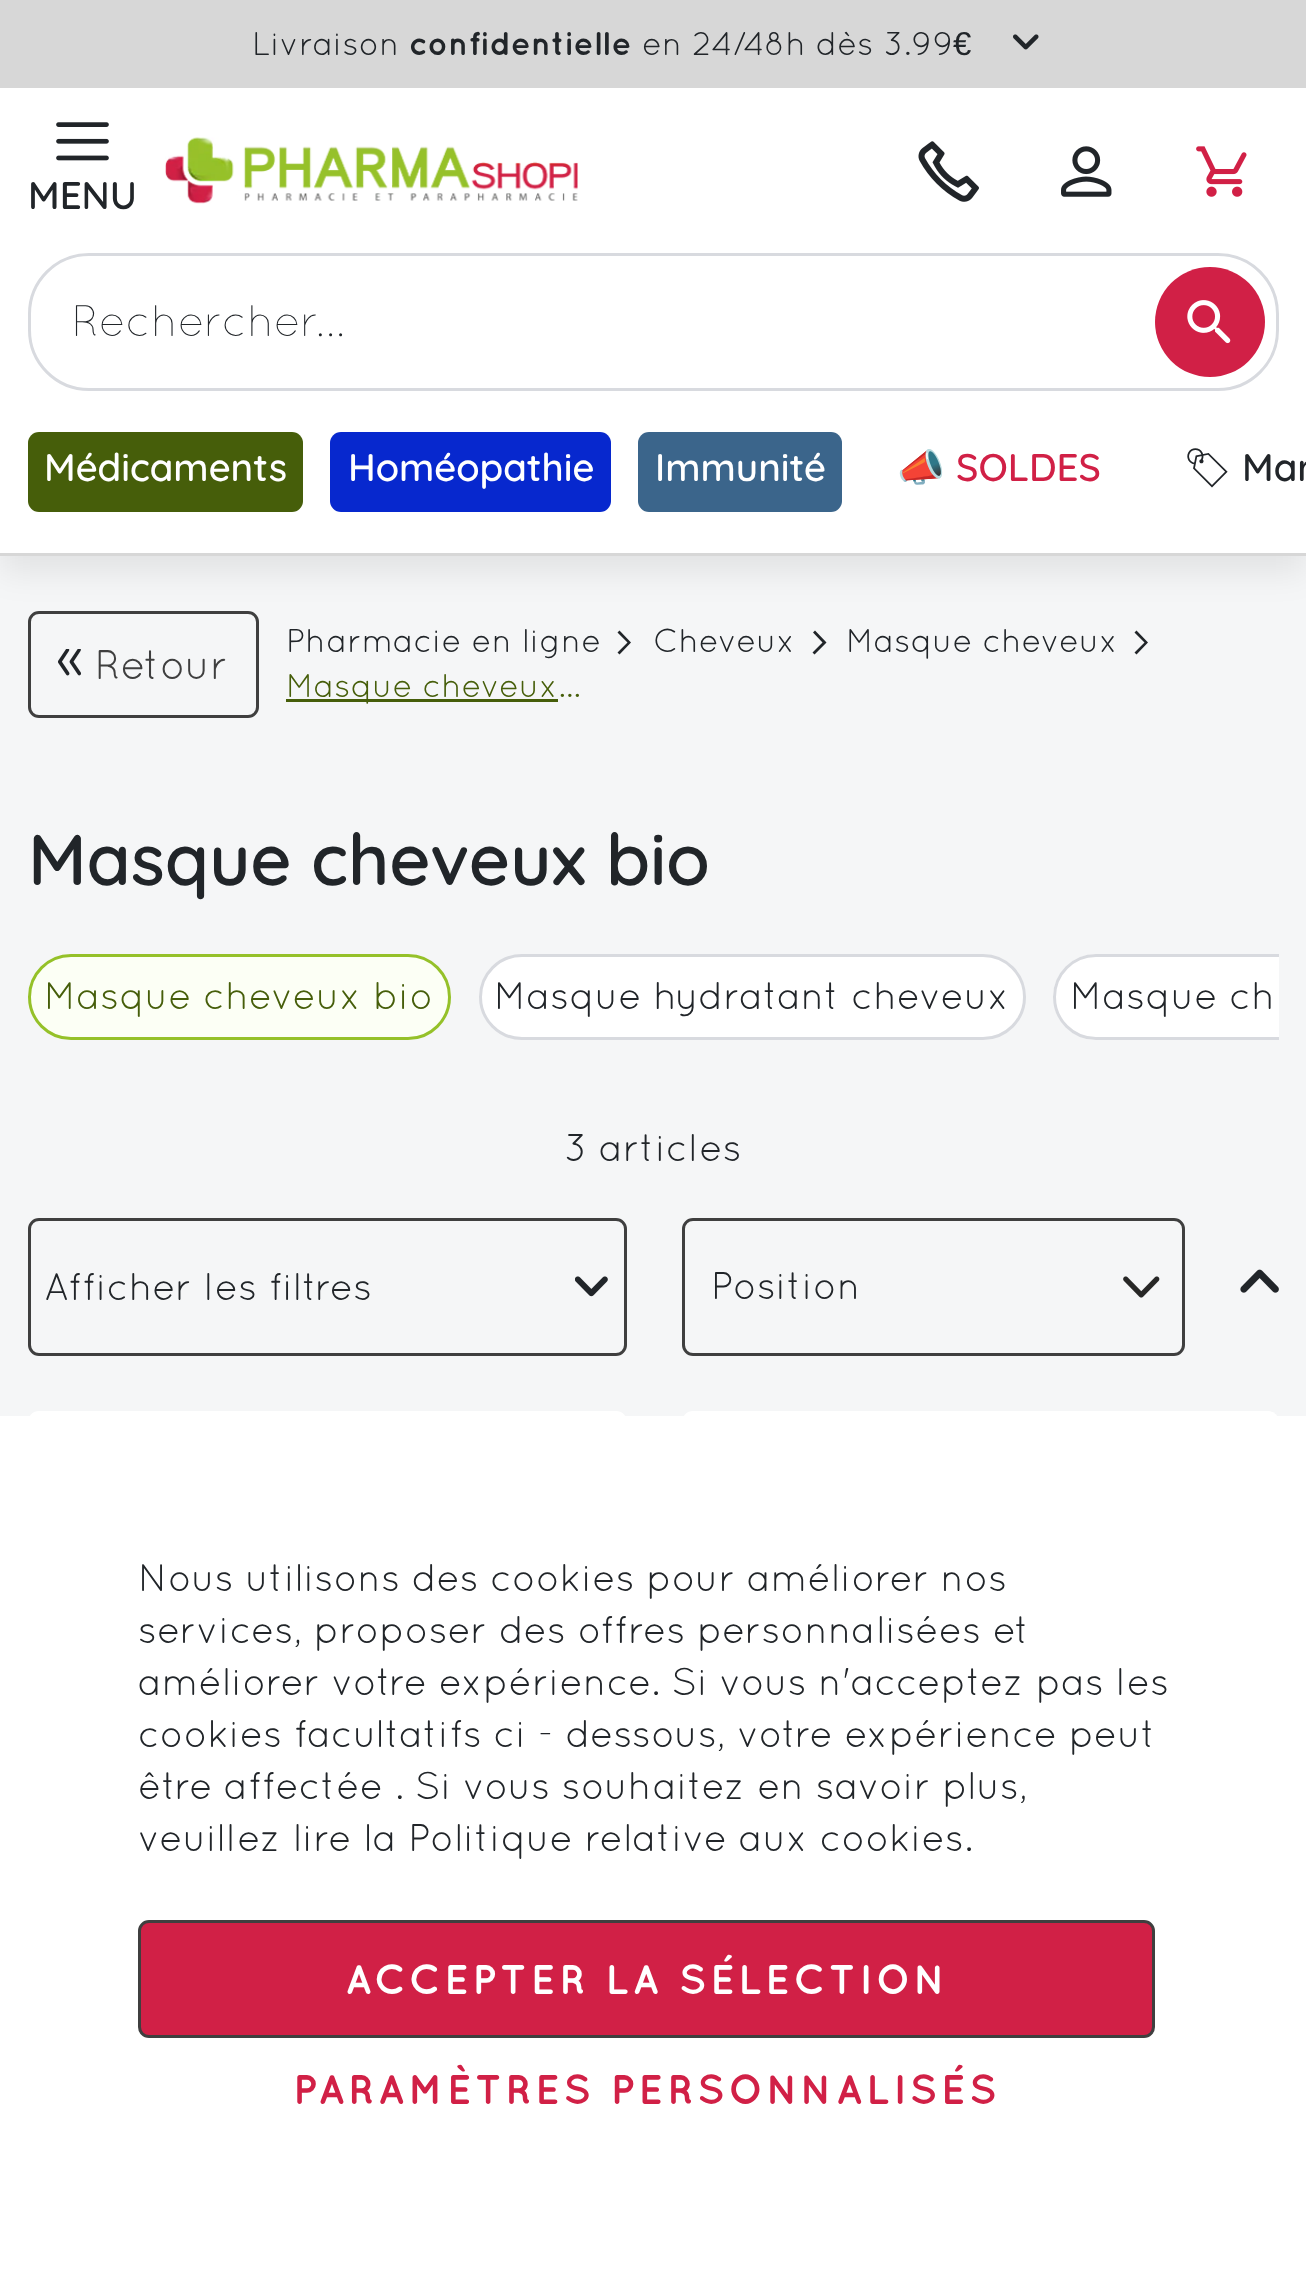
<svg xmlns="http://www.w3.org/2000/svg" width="1306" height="2277">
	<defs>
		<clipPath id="clip1"><rect x="28" y="954" width="1251" height="88" /></clipPath>
	</defs>
	<rect width="100%" height="100%" fill="#F5F6F7" />
	<rect x="29.5" y="612.5" width="228" height="104" rx="9.5" fill="none" stroke="#3F3F3F" stroke-width="3" />
	<rect x="0" y="17" width="1306" height="555" fill="#000000" fill-opacity="0.08" filter="blur(16.5px)" />
	<rect x="0" y="88" width="1306" height="465" fill="#FFFFFF" />
	<rect x="0" y="553" width="1306" height="3" fill="#D7D7D7" />
	<rect x="0" y="0" width="1306" height="88" fill="#D7D7D7" />
	<text x="252" y="55" font-family="Quicksand" font-size="33" fill="#212529">Livraison</text>
	<text x="409" y="55" font-family="Quicksand" font-size="33" font-weight="700" fill="#212529">confidentielle</text>
	<text x="642" y="55" font-family="Quicksand" font-size="33" fill="#212529">en 24/48h dès 3.99</text>
	<text x="953" y="55" font-family="Liberation Sans" font-size="33" fill="#212529">€</text>
	<image x="1013" y="34" width="26" height="16" href="assets/img1.png" />
	<image x="56" y="122" width="53" height="39" href="assets/img2.png" />
	<text x="28" y="209" font-family="Quicksand" font-size="38.5" font-weight="600" fill="#212529">MENU</text>
	<image x="165" y="137" width="413" height="67" href="assets/img3.png" />
	<image x="918" y="141" width="61" height="61" href="assets/img4.png" />
	<image x="1061" y="146" width="51" height="51" href="assets/img5.png" />
	<image x="1196" y="146" width="51" height="51" href="assets/img6.png" />
	<circle cx="1210" cy="322" r="55" fill="#D12046" />
	<image x="1187" y="300" width="44" height="44" href="assets/img7.png" />
	<rect x="29.5" y="254.5" width="1248" height="135" rx="59.5" fill="none" stroke="#D8DADF" stroke-width="3" />
	<text x="72" y="336" font-family="Quicksand" font-size="44" font-weight="300" fill="#212529">Rechercher...</text>
	<rect x="28" y="432" width="275" height="80" rx="11" fill="#465E0A" />
	<text x="44" y="481" font-family="Quicksand" font-size="38.5" font-weight="500" fill="#FFFFFF">Médicaments</text>
	<rect x="330" y="432" width="281" height="80" rx="11" fill="#0728CE" />
	<text x="348" y="481" font-family="Quicksand" font-size="38.5" font-weight="500" fill="#FFFFFF">Homéopathie</text>
	<rect x="638" y="432" width="204" height="80" rx="11" fill="#3B658B" />
	<text x="655" y="481" font-family="Quicksand" font-size="38.5" font-weight="500" fill="#FFFFFF">Immunité</text>
	<text x="897" y="481" font-family="Noto Color Emoji" font-size="38.5" fill="#D12046">📣</text>
	<text x="956" y="481" font-family="Quicksand" font-size="38.5" font-weight="500" fill="#D12046">SOLDES</text>
	<text x="1183" y="481" font-family="Noto Emoji" font-size="38.5" font-weight="500" fill="#212529">🏷</text>
	<text x="1242" y="481" font-family="Quicksand" font-size="38.5" font-weight="500" fill="#212529">Mar</text>
	<image x="58" y="649" width="23" height="27" href="assets/img8.png" />
	<text x="95" y="679" font-family="Quicksand" font-size="41.25" fill="#3F3F3F">Retour</text>
	<text x="286" y="652" font-family="Quicksand" font-size="33" fill="#212529">Pharmacie en ligne</text>
	<path d="M631 642.5L619.5 630.5L617.5 632.5L627.5 642.5L617.5 652.5L619.5 654.5Z" fill="#212529" />
	<text x="653" y="652" font-family="Quicksand" font-size="33" fill="#212529">Cheveux</text>
	<path d="M826.5 642.5L815 630.5L813 632.5L822.5 642.5L812.5 652.5L814.5 654.5Z" fill="#212529" />
	<text x="846" y="652" font-family="Quicksand" font-size="33" fill="#212529">Masque cheveux</text>
	<path d="M1148 642.5L1136.5 630.5L1134.5 632.5L1144.5 642.5L1134.5 652.5L1136.5 654.5Z" fill="#212529" />
	<rect x="286" y="699" width="272" height="3" fill="#465E0A" />
	<text x="286" y="697" font-family="Quicksand" font-size="33" fill="#465E0A">Masque cheveux…</text>
	<text x="28" y="885" font-family="Quicksand" font-size="71.5" font-weight="600" fill="#212529">Masque cheveux bio</text>
	<rect x="29.5" y="955.5" width="420" height="83" rx="41.5" fill="#FCFFF5" stroke="#95C129" stroke-width="3" />
	<text x="44" y="1009" font-family="Quicksand" font-size="38.5" fill="#465E0A">Masque cheveux bio</text>
	<rect x="480.5" y="955.5" width="544" height="83" rx="41.5" fill="#FFFFFF" stroke="#D8DADF" stroke-width="3" />
	<text x="494" y="1009" font-family="Quicksand" font-size="38.5" fill="#212529">Masque hydratant cheveux</text>
	<path d="M1096 954H1279V1040H1096C1072.5 1040 1053 1020.5 1053 997C1053 973.5 1072.5 954 1096 954Z" fill="#FFFFFF" />
	<g clip-path="url(#clip1)">
		<rect x="1054.5" y="955.5" width="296" height="83" rx="41.5" fill="none" stroke="#D8DADF" stroke-width="3" />
	</g>
	<g font-family="Quicksand" font-size="38.5" fill="#212529">
		<text x="1070" y="1009">Masque ch</text>
		<text x="564" y="1161">3 articles</text>
	</g>
	<image x="1123" y="1276" width="37" height="22" href="assets/img9.png" />
	<rect x="683.5" y="1219.5" width="500" height="135" rx="9.5" fill="none" stroke="#3F3F3F" stroke-width="3" />
	<text x="711" y="1299" font-family="Quicksand" font-size="38.5" fill="#212529">Position</text>
	<image x="1240" y="1269" width="39" height="24" href="assets/img10.png" />
	<rect x="28" y="1411" width="599" height="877" rx="11" fill="#FFFFFF" />
	<rect x="682" y="1411" width="597" height="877" rx="11" fill="#FFFFFF" />
	<rect x="29.5" y="1219.5" width="596" height="135" rx="9.5" fill="none" stroke="#3F3F3F" stroke-width="3" />
	<text x="44" y="1300" font-family="Quicksand" font-size="38.5" fill="#212529">Afficher les filtres</text>
	<image x="575" y="1276" width="33" height="21" href="assets/img11.png" />
	<rect x="0" y="1416" width="1306" height="861" fill="#FFFFFF" />
	<g font-family="Quicksand" font-size="38.5" fill="#212529">
		<text x="138" y="1591">Nous utilisons des cookies pour améliorer nos</text>
		<text x="138" y="1643">services, proposer des offres personnalisées et</text>
		<text x="138" y="1695">améliorer votre expérience. Si vous n'acceptez pas les</text>
		<text x="138" y="1747">cookies facultatifs ci - dessous, votre expérience peut</text>
		<text x="138" y="1799">être affectée . Si vous souhaitez en savoir plus,</text>
		<text x="138" y="1851">veuillez lire la Politique relative aux cookies.</text>
	</g>
	<rect x="139.5" y="1921.5" width="1014" height="115" rx="9.5" fill="#D12046" stroke="#3F3F3F" stroke-width="3" />
	<text x="345" y="1994" font-family="Quicksand" font-size="41.25" font-weight="700" letter-spacing="3.75" fill="#FFFFFF">ACCEPTER LA SÉLECTION</text>
	<text x="293" y="2104" font-family="Quicksand" font-size="41.25" font-weight="700" letter-spacing="3.75" fill="#D12046">PARAMÈTRES PERSONNALISÉS</text>
</svg>
